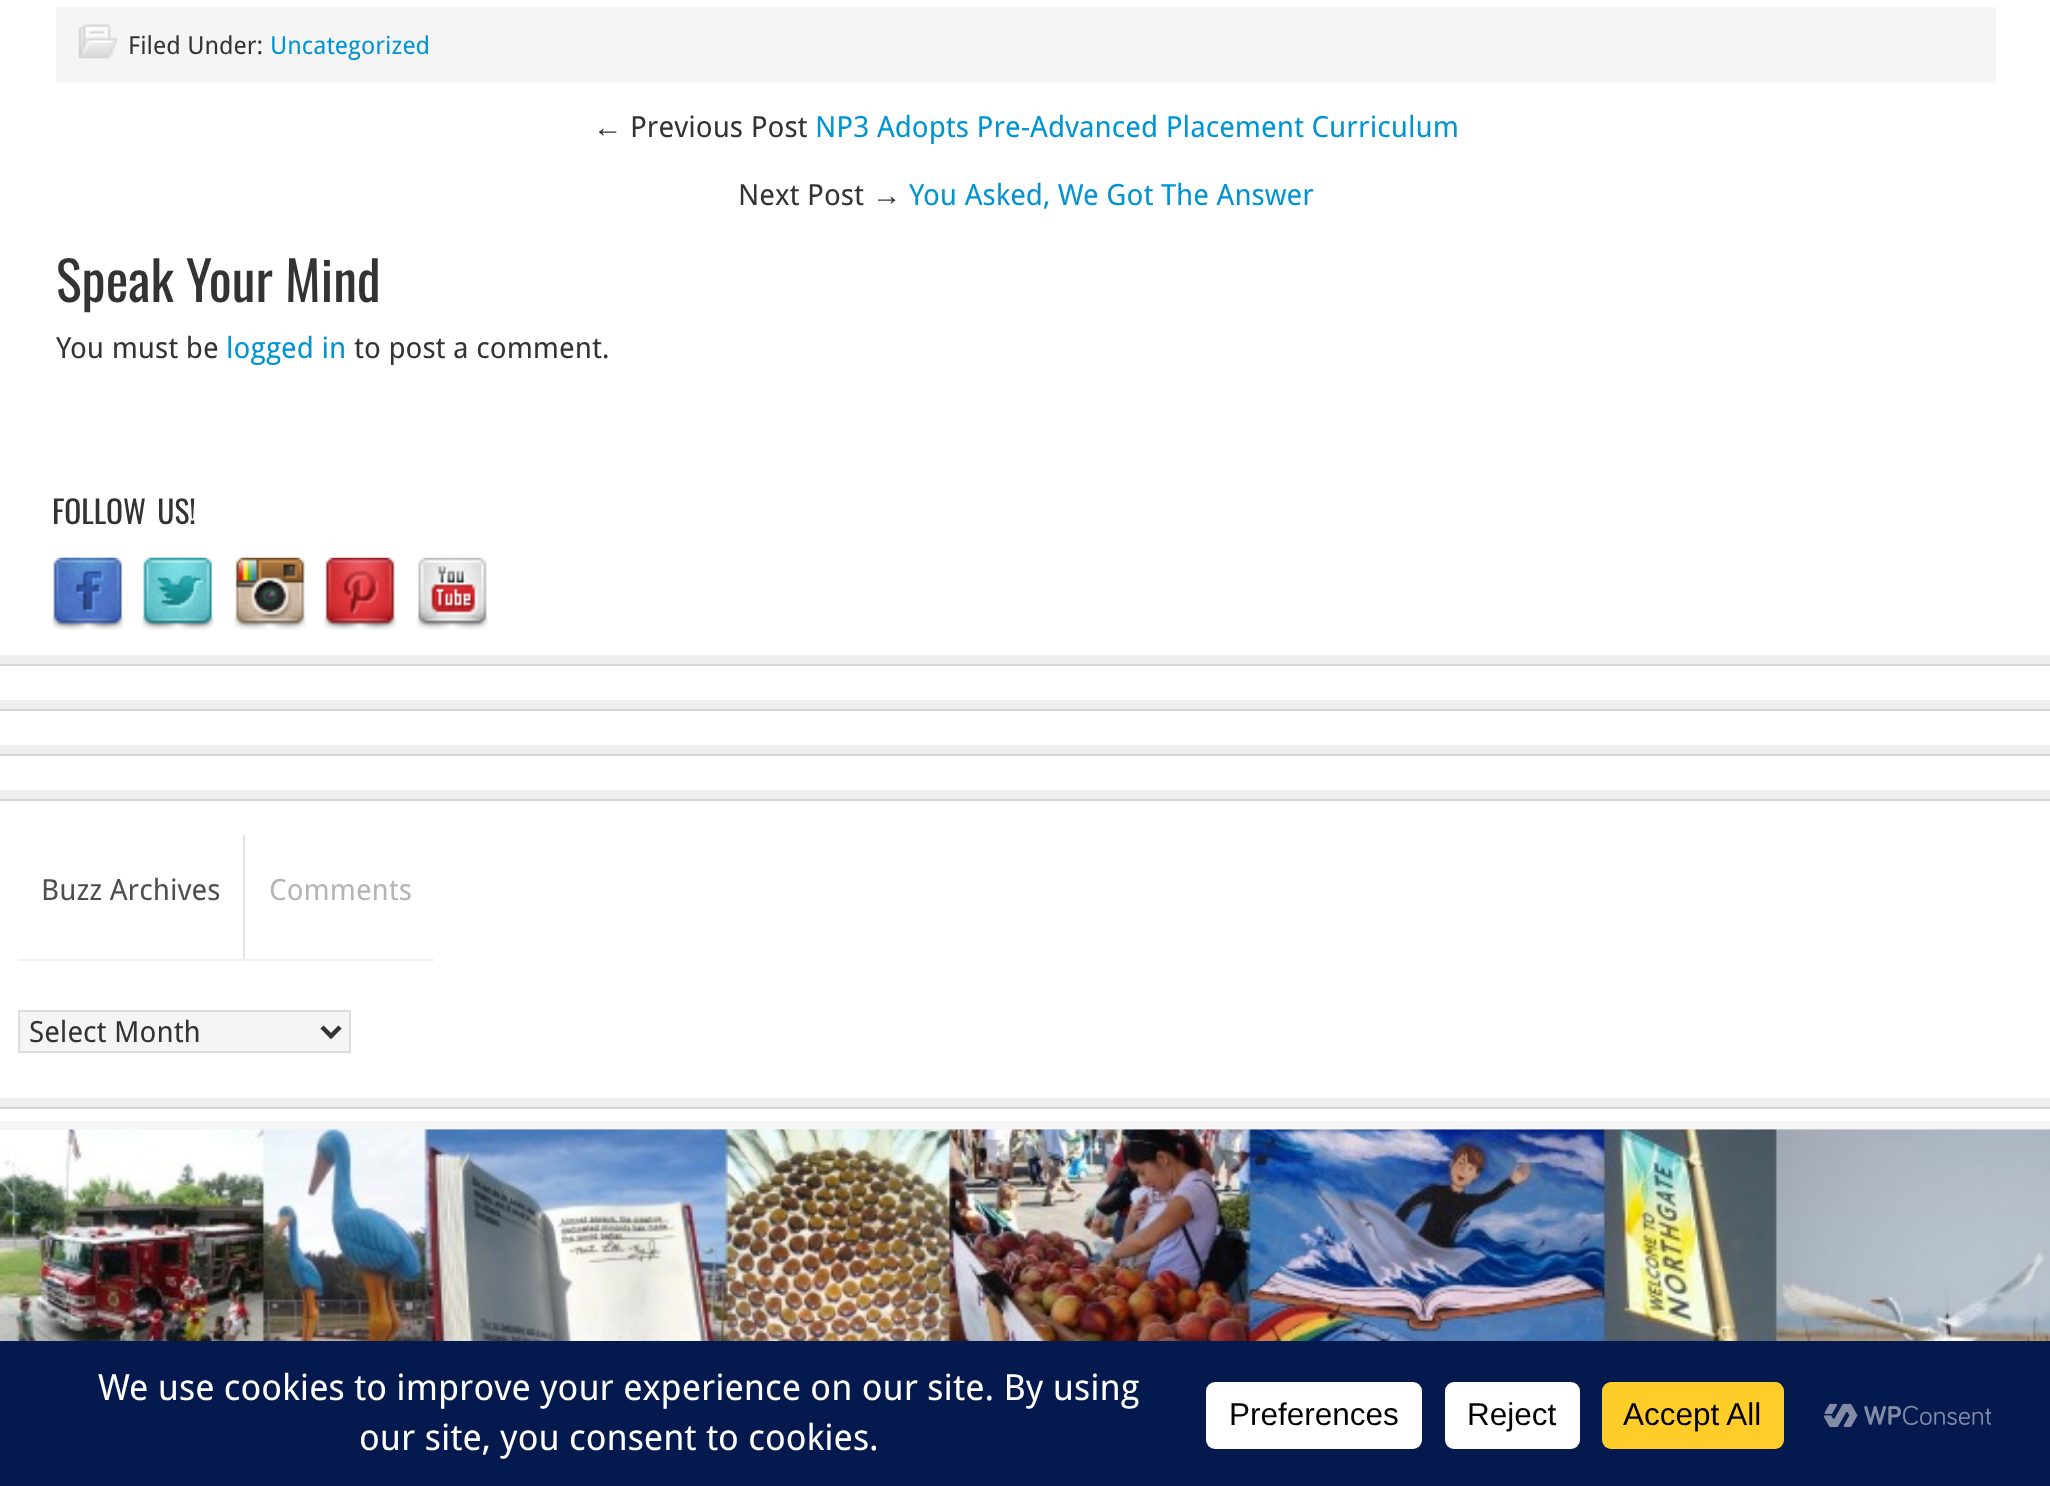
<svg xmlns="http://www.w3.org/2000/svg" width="2050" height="1486">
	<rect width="100%" height="100%" fill="#FFFFFF" />
	<rect x="56" y="7" width="1940" height="76" fill="#F5F5F5" />
	<image x="78" y="24" width="39" height="35" href="assets/img1.png" />
	<text x="128" y="54" font-family="Droid Sans" font-size="24.75" fill="#333333">Filed Under:</text>
	<text x="270" y="54" font-family="Droid Sans" font-size="24.75" fill="#0094D2">Uncategorized</text>
	<text x="593" y="137" font-family="Liberation Sans" font-size="29.25" fill="#333333">←</text>
	<text x="630" y="137" font-family="Droid Sans" font-size="29.25" fill="#333333">Previous Post</text>
	<text x="815" y="137" font-family="Droid Sans" font-size="29.25" fill="#0094D2">NP3 Adopts Pre-Advanced Placement Curriculum</text>
	<text x="738" y="205" font-family="Droid Sans" font-size="29.25" fill="#333333">Next Post</text>
	<text x="872" y="205" font-family="Liberation Sans" font-size="29.25" fill="#333333">→</text>
	<text x="909" y="205" font-family="Droid Sans" font-size="29.25" fill="#0094D2">You Asked, We Got The Answer</text>
	<text x="56" y="302" font-family="Oswald" font-size="54" fill="#333333">Speak Your Mind</text>
	<text x="56" y="358" font-family="Droid Sans" font-size="29.25" fill="#333333">You must be</text>
	<text x="226" y="358" font-family="Droid Sans" font-size="29.25" fill="#0094D2">logged in</text>
	<text x="354" y="358" font-family="Droid Sans" font-size="29.25" fill="#333333">to post a comment.</text>
	<rect x="0" y="664" width="2050" height="2" fill="#D5D5D5" />
	<rect x="0" y="655" width="2050" height="9" fill="#EEEEEE" />
	<text x="52" y="524" word-spacing="4" font-family="Oswald" font-size="31.5" fill="#333333">FOLLOW US!</text>
	<image x="52" y="557" width="72" height="73" href="assets/img2.png" />
	<image x="142" y="557" width="72" height="73" href="assets/img3.png" />
	<image x="234" y="557" width="72" height="73" href="assets/img4.png" />
	<image x="324" y="557" width="72" height="73" href="assets/img5.png" />
	<image x="416" y="557" width="72" height="73" href="assets/img6.png" />
	<rect x="0" y="709" width="2050" height="2" fill="#D5D5D5" />
	<rect x="0" y="700" width="2050" height="9" fill="#EEEEEE" />
	<rect x="0" y="754" width="2050" height="2" fill="#D5D5D5" />
	<rect x="0" y="745" width="2050" height="9" fill="#EEEEEE" />
	<rect x="0" y="799" width="2050" height="2" fill="#D5D5D5" />
	<rect x="0" y="790" width="2050" height="9" fill="#EEEEEE" />
	<rect x="0" y="1107" width="2050" height="2" fill="#D5D5D5" />
	<rect x="0" y="1098" width="2050" height="9" fill="#EEEEEE" />
	<rect x="243" y="835" width="2" height="126" fill="#E6E6E6" />
	<rect x="18" y="959" width="416" height="2" fill="#EEEEEE" />
	<text x="41" y="900" font-family="Droid Sans" font-size="29.25" fill="#4F4F4F">Buzz Archives</text>
	<rect x="245" y="959" width="2" height="2" fill="#FFFFFF" />
	<text x="269" y="900" font-family="Droid Sans" font-size="29.25" fill="#B5B5B5">Comments</text>
	<rect x="19" y="1011" width="331" height="41" fill="#F5F5F5" stroke="#DDDDDD" stroke-width="2" />
	<path d="M322 1027L331 1036L340 1027" fill="none" stroke="#333333" stroke-width="4.5" />
	<text x="29" y="1042" font-family="Droid Sans" font-size="29.25" fill="#333333">Select Month</text>
	<rect x="0" y="1121" width="2050" height="9" fill="#F5F5F5" />
	<image x="0" y="1129" width="2050" height="212" href="assets/img7.png" />
	<rect x="0" y="1341" width="2050" height="145" fill="#04194E" />
	<g font-family="Droid Sans" font-size="36" fill="#FFFFFF">
		<text x="98" y="1400">We use cookies to improve your experience on our site. By using</text>
		<text x="359" y="1450">our site, you consent to cookies.</text>
	</g>
	<rect x="1206" y="1382" width="216" height="67" rx="9" fill="#FFFFFF" />
	<text x="1229" y="1425" font-family="Liberation Sans" font-size="31.5" fill="#000000">Preferences</text>
	<rect x="1445" y="1382" width="135" height="67" rx="9" fill="#FFFFFF" />
	<text x="1467" y="1425" font-family="Liberation Sans" font-size="31.5" fill="#000000">Reject</text>
	<rect x="1602" y="1382" width="182" height="67" rx="9" fill="#FFCD2A" />
	<text x="1623" y="1425" font-family="Liberation Sans" font-size="31.5" fill="#000000">Accept All</text>
	<image x="1824" y="1403" width="168" height="24" href="assets/img8.png" />
</svg>
